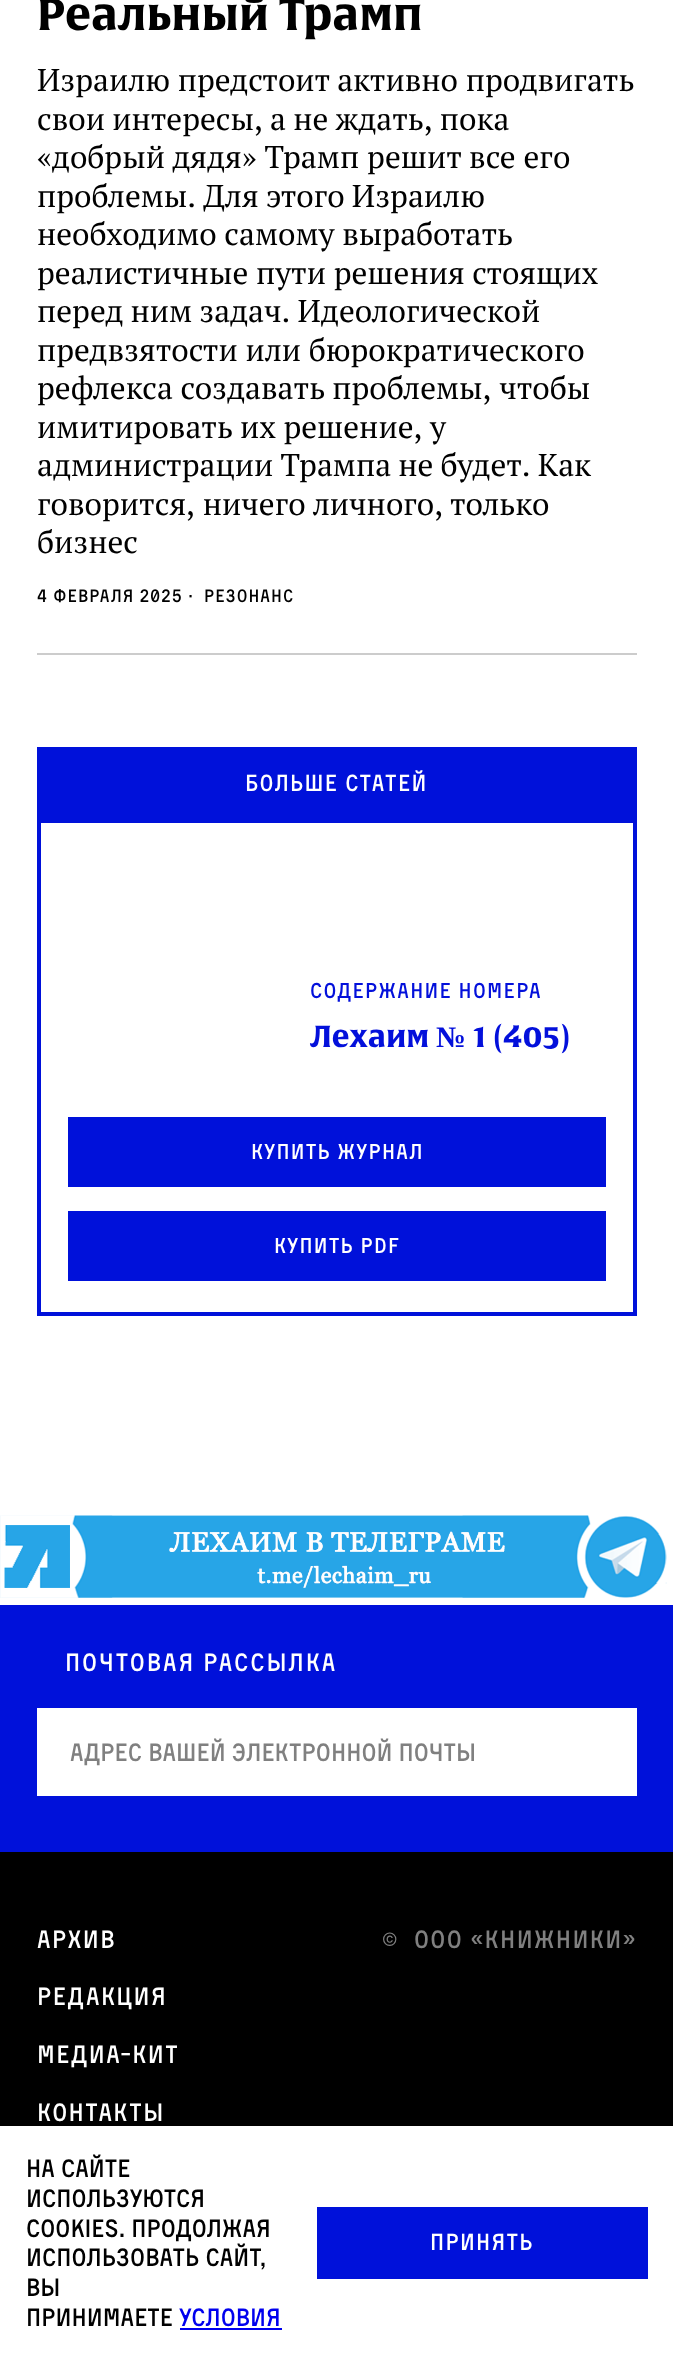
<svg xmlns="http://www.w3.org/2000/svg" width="673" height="2356">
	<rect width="100%" height="100%" fill="#FFFFFF" />
	<rect x="37" y="653" width="600" height="2" fill="#CCCCCC" />
	<text x="37" y="30" font-family="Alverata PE" font-size="43.75" font-weight="700" fill="#000000">Реальный Трамп</text>
	<g font-family="PT Serif" font-size="31.5" fill="#000000">
		<text x="37" y="91">Израилю предстоит активно продвигать</text>
		<text x="37" y="130" word-spacing="-0.5">свои интересы, а не ждать, пока</text>
		<text x="37" y="168" word-spacing="0.25">«добрый дядя» Трамп решит все его</text>
		<text x="37" y="207" word-spacing="-0.5">проблемы. Для этого Израилю</text>
		<text x="37" y="245">необходимо самому выработать</text>
		<text x="37" y="284">реалистичные пути решения стоящих</text>
		<text x="37" y="322" word-spacing="-0.5">перед ним задач. Идеологической</text>
		<text x="37" y="361">предвзятости или бюрократического</text>
		<text x="37" y="399">рефлекса создавать проблемы, чтобы</text>
		<text x="37" y="438">имитировать их решение, у</text>
		<text x="37" y="476" word-spacing="-0.5">администрации Трампа не будет. Как</text>
		<text x="37" y="515">говорится, ничего личного, только</text>
		<text x="37" y="553">бизнес</text>
	</g>
	<g font-family="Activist" font-size="17.5" letter-spacing="1" fill="#000000">
		<text x="37" y="602">4 февраля 2025 ·</text>
		<text x="204" y="602">Резонанс</text>
	</g>
	<rect x="37" y="747" width="600" height="72" fill="#0011DA" />
	<text x="245" y="791" font-family="Activist" font-size="22.75" letter-spacing="1.25" fill="#FFFFFF">Больше статей</text>
	<rect x="39" y="821" width="596" height="493" fill="none" stroke="#0011DA" stroke-width="4" />
	<text x="310" y="998" font-family="Activist" font-size="21" letter-spacing="1.25" fill="#0310DB">Содержание номера</text>
	<text x="310" y="1047" font-family="Alverata PE" font-size="29.75" font-weight="700" fill="#0310DB">Лехаим</text>
	<text x="436" y="1047" font-family="Liberation Serif" font-size="29.75" font-weight="700" fill="#0310DB">№</text>
	<text x="473" y="1047" font-family="Alverata PE" font-size="29.75" font-weight="700" fill="#0310DB">1 (405)</text>
	<rect x="68" y="1117" width="538" height="70" fill="#0011DA" />
	<text x="251" y="1159" font-family="Activist" font-size="21" letter-spacing="1.25" fill="#FFFFFF">Купить журнал</text>
	<rect x="68" y="1211" width="538" height="70" fill="#0011DA" />
	<text x="274" y="1253" font-family="Activist" font-size="21" letter-spacing="1.25" fill="#FFFFFF">Купить PDF</text>
	<image x="0" y="1515" width="667" height="83" href="assets/img1.png" />
	<rect x="0" y="1605" width="673" height="247" fill="#0011DA" />
	<text x="65" y="1671" font-family="Activist" font-size="24.5" letter-spacing="1.9" fill="#FFFFFF">Почтовая рассылка</text>
	<rect x="37" y="1708" width="600" height="88" fill="#FFFFFF" />
	<text x="70" y="1761" font-family="Activist" font-size="24.5" fill="#808080">Адрес вашей электронной почты</text>
	<rect x="0" y="1852" width="673" height="274" fill="#000000" />
	<g font-family="Activist" font-size="24.5" letter-spacing="1.4" fill="#FFFFFF">
		<text x="37" y="1948">Архив</text>
		<text x="37" y="2005">Редакция</text>
		<text x="37" y="2063">Медиа-кит</text>
		<text x="37" y="2121">Контакты</text>
	</g>
	<text x="382" y="1948" font-family="Activist" font-size="24.5" letter-spacing="1.4" fill="#808080" xml:space="preserve">©  OOO «КНИЖНИКИ»</text>
	<g font-family="Activist" font-size="24.5" fill="#000000">
		<text x="26" y="2177">На сайте</text>
		<text x="26" y="2207">используются</text>
		<text x="26" y="2237">cookies. Продолжая</text>
		<text x="26" y="2266">использовать сайт,</text>
		<text x="26" y="2296">вы</text>
		<text x="26" y="2326">принимаете</text>
	</g>
	<text x="179" y="2326" font-family="Activist" font-size="24.5" fill="#0000EE">условия</text>
	<rect x="180" y="2328" width="102" height="2" fill="#0000EE" />
	<rect x="317" y="2207" width="331" height="72" fill="#0011DA" />
	<text x="430" y="2250" font-family="Activist" font-size="22.75" letter-spacing="1.25" fill="#FFFFFF">Принять</text>
</svg>
